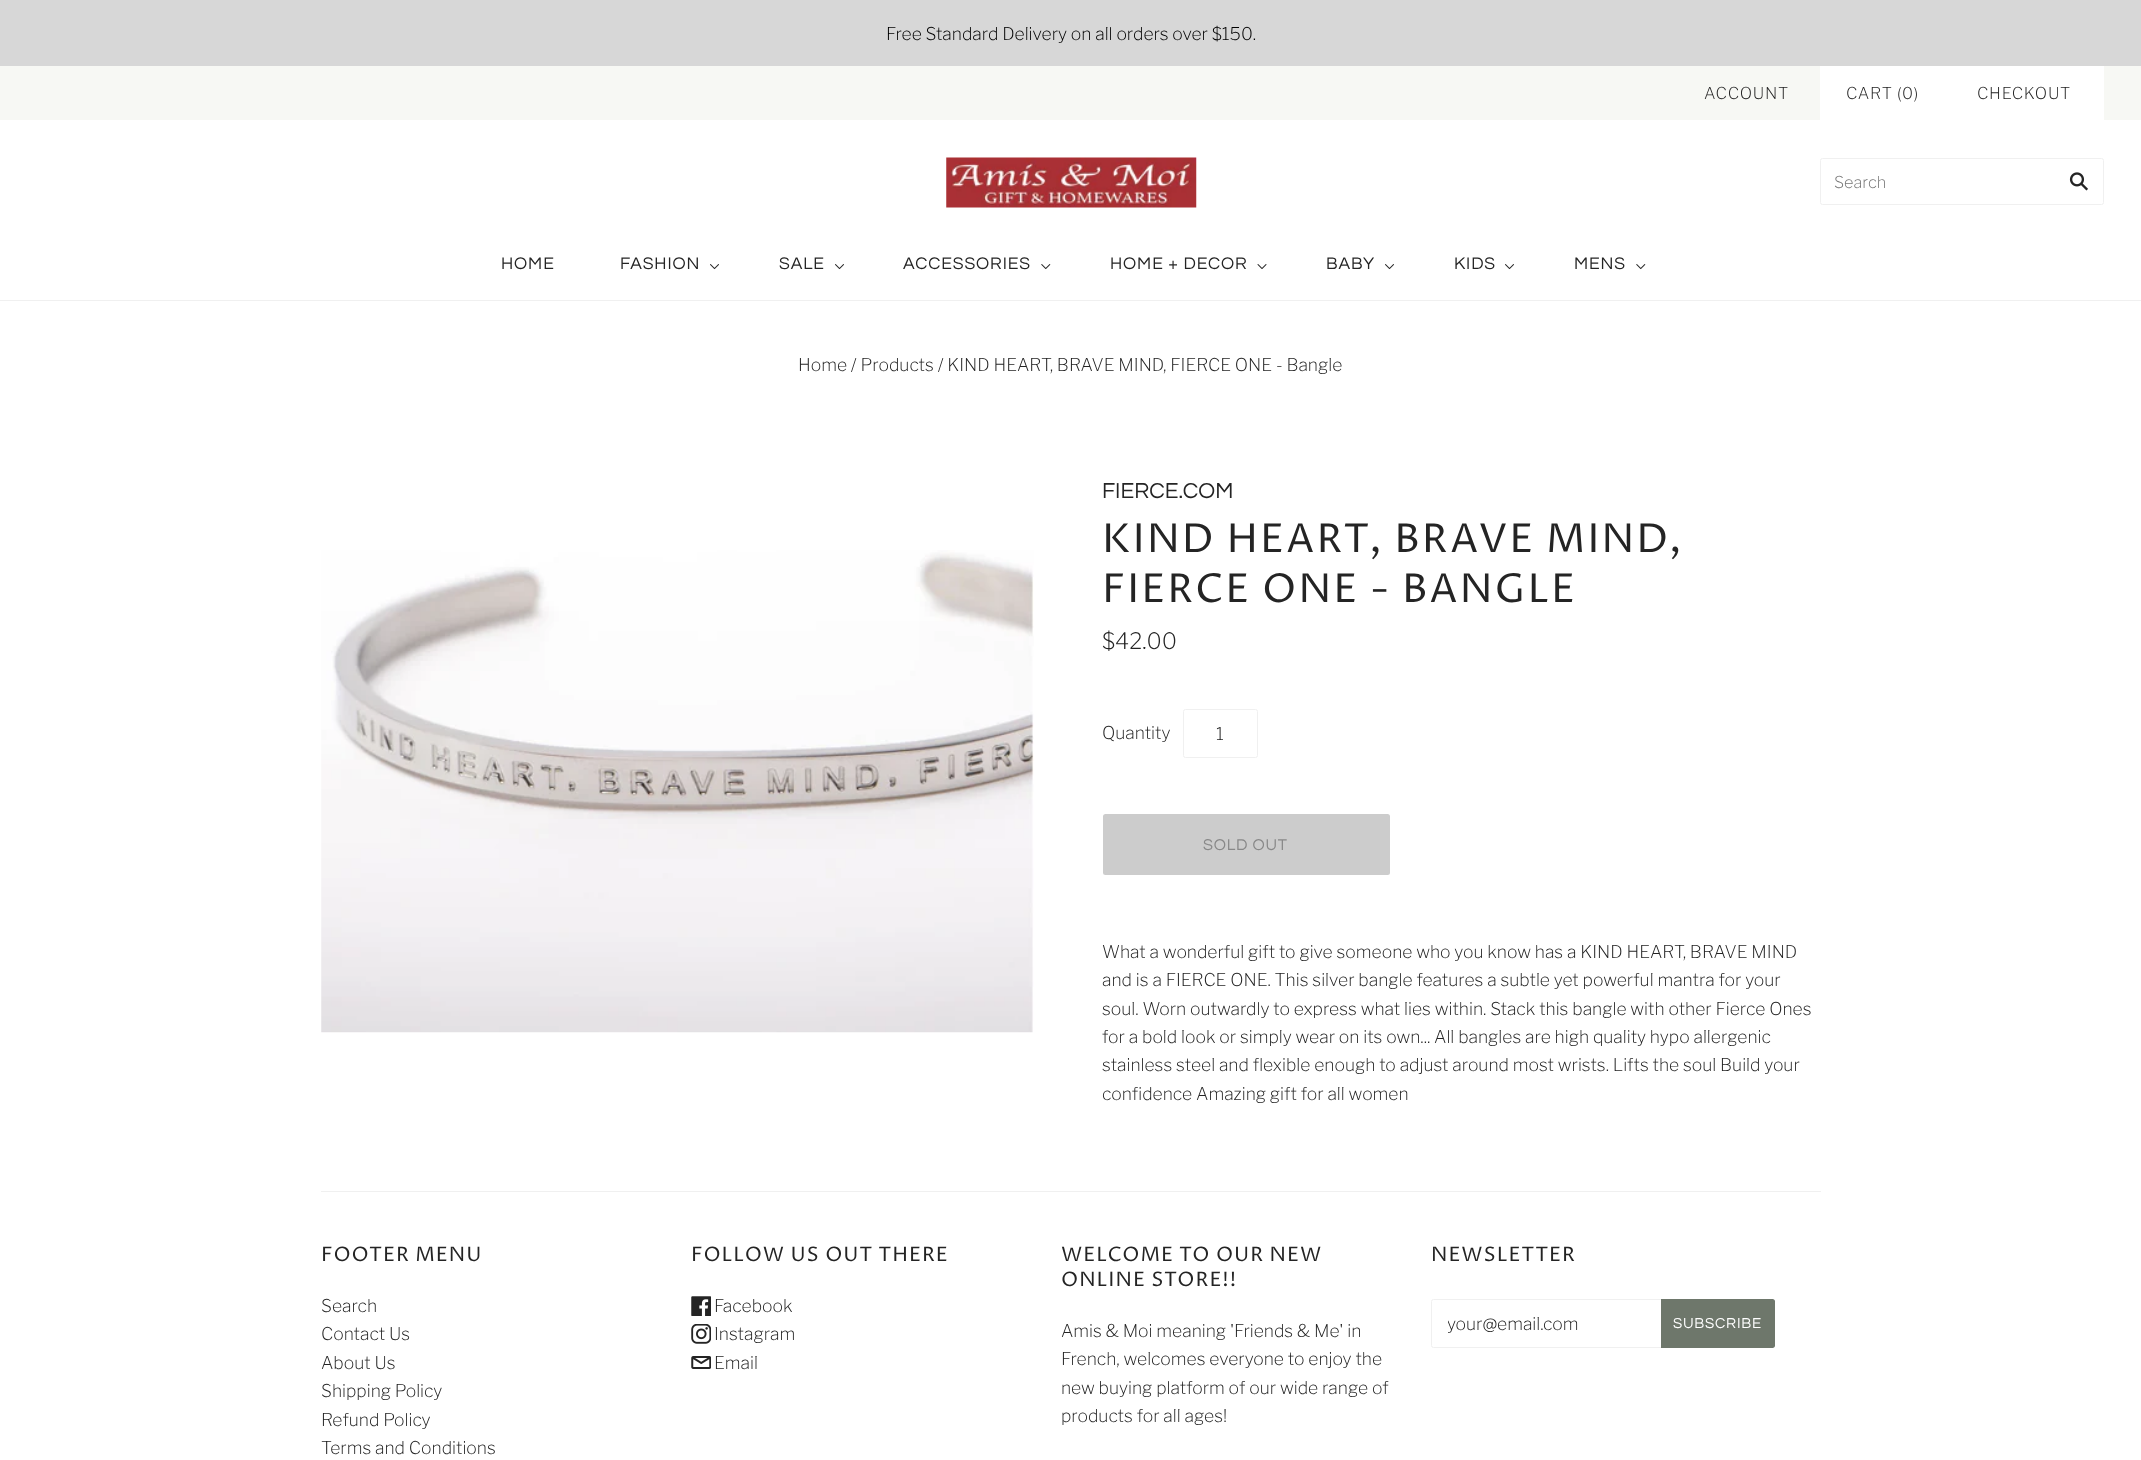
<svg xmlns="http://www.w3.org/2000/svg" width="2141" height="1460">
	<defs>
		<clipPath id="clip1"><rect x="1448" y="1313" width="200" height="21" /></clipPath>
	</defs>
	<rect width="100%" height="100%" fill="#FFFFFF" />
	<rect x="0" y="0" width="2141" height="66" fill="#D7D7D7" />
	<text x="886" y="40" font-family="Libre Franklin" font-size="17.5" font-weight="200" fill="#000000">Free Standard Delivery on all orders over $150.</text>
	<rect x="0" y="300" width="2141" height="1" fill="#F0F0F0" />
	<rect x="0" y="66" width="2141" height="54" fill="#F7F8F4" />
	<text x="1704" y="99" font-family="Libre Franklin" font-size="16.25" font-weight="200" letter-spacing="0.75" fill="#242424">ACCOUNT</text>
	<rect x="1820" y="66" width="284" height="54" fill="#FFFFFF" />
	<g font-family="Libre Franklin" font-size="16.25" font-weight="200" letter-spacing="0.75" fill="#242424">
		<text x="1846" y="99">CART (0)</text>
		<text x="1977" y="99">CHECKOUT</text>
	</g>
	<image x="946" y="157" width="251" height="51" href="assets/img1.png" />
	<rect x="1820.5" y="158.5" width="283" height="46" rx="2" fill="none" stroke="#F0F0F0" />
	<text x="1834" y="188" font-family="Libre Franklin" font-size="16.25" font-weight="200" fill="#757575">Search</text>
	<image x="2069" y="172" width="19" height="19" href="assets/img2.png" />
	<g font-family="Questrial" font-size="17.5" letter-spacing="0.9" fill="#242424">
		<text x="501" y="269">HOME</text>
		<text x="620" y="269">FASHION</text>
	</g>
	<image x="710" y="264" width="9" height="6" href="assets/img3.png" />
	<text x="779" y="269" font-family="Questrial" font-size="17.5" letter-spacing="0.9" fill="#242424">SALE</text>
	<image x="835" y="264" width="9" height="6" href="assets/img3.png" />
	<text x="903" y="269" font-family="Questrial" font-size="17.5" letter-spacing="0.9" fill="#242424">ACCESSORIES</text>
	<image x="1041" y="264" width="10" height="6" href="assets/img4.png" />
	<text x="1110" y="269" font-family="Questrial" font-size="17.5" letter-spacing="0.9" fill="#242424">HOME + DECOR</text>
	<image x="1257" y="264" width="10" height="5" href="assets/img5.png" />
	<text x="1326" y="269" font-family="Questrial" font-size="17.5" letter-spacing="0.9" fill="#242424">BABY</text>
	<image x="1385" y="264" width="9" height="6" href="assets/img3.png" />
	<text x="1454" y="269" font-family="Questrial" font-size="17.5" letter-spacing="0.9" fill="#242424">KIDS</text>
	<image x="1505" y="264" width="9" height="6" href="assets/img3.png" />
	<text x="1574" y="269" font-family="Questrial" font-size="17.5" letter-spacing="0.9" fill="#242424">MENS</text>
	<image x="1636" y="264" width="10" height="6" href="assets/img4.png" />
	<text x="798" y="371" font-family="Libre Franklin" font-size="17.5" font-weight="200" fill="#242424">Home / Products / KIND HEART, BRAVE MIND, FIERCE ONE - Bangle</text>
	<image x="321" y="550" width="713" height="483" href="assets/img6.png" />
	<text x="1102" y="498" font-family="Questrial" font-size="22.5" fill="#242424">FIERCE.COM</text>
	<g font-family="Proza Libre" font-size="40" letter-spacing="2" fill="#242424">
		<text x="1102" y="552">KIND HEART, BRAVE MIND,</text>
		<text x="1102" y="602">FIERCE ONE - BANGLE</text>
	</g>
	<text x="1102" y="649" font-family="Libre Franklin" font-size="22.5" font-weight="200" fill="#242424">$42.00</text>
	<text x="1102" y="739" font-family="Libre Franklin" font-size="17.5" font-weight="200" fill="#242424">Quantity</text>
	<rect x="1183.5" y="709.5" width="74" height="48" rx="2" fill="none" stroke="#F0F0F0" />
	<text x="1216" y="740" font-family="Libre Franklin" font-size="17.5" font-weight="200" fill="#242424">1</text>
	<rect x="1103" y="814" width="287" height="61" rx="2.5" fill="#CCCCCC" />
	<text x="1203" y="850" font-family="Questrial" font-size="16.25" letter-spacing="0.75" fill="#888888">SOLD OUT</text>
	<g font-family="Libre Franklin" font-size="17.5" font-weight="200" fill="#242424">
		<text x="1102" y="958">What a wonderful gift to give someone who you know has a KIND HEART, BRAVE MIND</text>
		<text x="1102" y="986">and is a FIERCE ONE. This silver bangle features a subtle yet powerful mantra for your</text>
		<text x="1102" y="1015">soul. Worn outwardly to express what lies within. Stack this bangle with other Fierce Ones</text>
		<text x="1102" y="1043">for a bold look or simply wear on its own... All bangles are high quality hypo allergenic</text>
		<text x="1102" y="1071">stainless steel and flexible enough to adjust around most wrists. Lifts the soul Build your</text>
		<text x="1102" y="1100">confidence Amazing gift for all women</text>
	</g>
	<rect x="321" y="1191" width="1500" height="1" fill="#F0F0F0" />
	<text x="321" y="1261" font-family="Proza Libre" font-size="20" letter-spacing="1" fill="#242424">FOOTER MENU</text>
	<g font-family="Libre Franklin" font-size="17.5" font-weight="200" fill="#242424">
		<text x="321" y="1312">Search</text>
		<text x="321" y="1340">Contact Us</text>
		<text x="321" y="1369">About Us</text>
		<text x="321" y="1397">Shipping Policy</text>
		<text x="321" y="1426">Refund Policy</text>
		<text x="321" y="1454">Terms and Conditions</text>
	</g>
	<text x="691" y="1261" font-family="Proza Libre" font-size="20" letter-spacing="1" fill="#242424">FOLLOW US OUT THERE</text>
	<image x="691" y="1296" width="20" height="20" href="assets/img7.png" />
	<text x="714" y="1312" font-family="Libre Franklin" font-size="17.5" font-weight="200" fill="#242424">Facebook</text>
	<image x="691" y="1324" width="20" height="20" href="assets/img8.png" />
	<text x="714" y="1340" font-family="Libre Franklin" font-size="17.5" font-weight="200" fill="#242424">Instagram</text>
	<image x="691" y="1356" width="20" height="13" href="assets/img9.png" />
	<text x="714" y="1369" font-family="Libre Franklin" font-size="17.5" font-weight="200" fill="#242424">Email</text>
	<g font-family="Proza Libre" font-size="20" letter-spacing="1" fill="#242424">
		<text x="1061" y="1261">WELCOME TO OUR NEW</text>
		<text x="1061" y="1286">ONLINE STORE!!</text>
	</g>
	<g font-family="Libre Franklin" font-size="17.5" font-weight="200" fill="#242424">
		<text x="1061" y="1337">Amis &amp; Moi meaning 'Friends &amp; Me' in</text>
		<text x="1061" y="1365">French, welcomes everyone to enjoy the</text>
		<text x="1061" y="1394">new buying platform of our wide range of</text>
		<text x="1061" y="1422">products for all ages!</text>
	</g>
	<text x="1431" y="1261" font-family="Proza Libre" font-size="20" letter-spacing="1" fill="#242424">NEWSLETTER</text>
	<rect x="1431.5" y="1299.5" width="343" height="48" rx="2" fill="none" stroke="#F0F0F0" />
	<g clip-path="url(#clip1)">
		<text x="1447" y="1330" font-family="Libre Franklin" font-size="17.5" font-weight="200" fill="#242424">your@email.com</text>
	</g>
	<path d="M1661 1299H1772.5C1774 1299 1775 1300 1775 1301.5V1345.5C1775 1347 1774 1348 1772.5 1348H1661Z" fill="#6E776B" />
	<text x="1673" y="1328" font-family="Questrial" font-size="15" letter-spacing="0.75" fill="#FFFFFF">SUBSCRIBE</text>
</svg>
